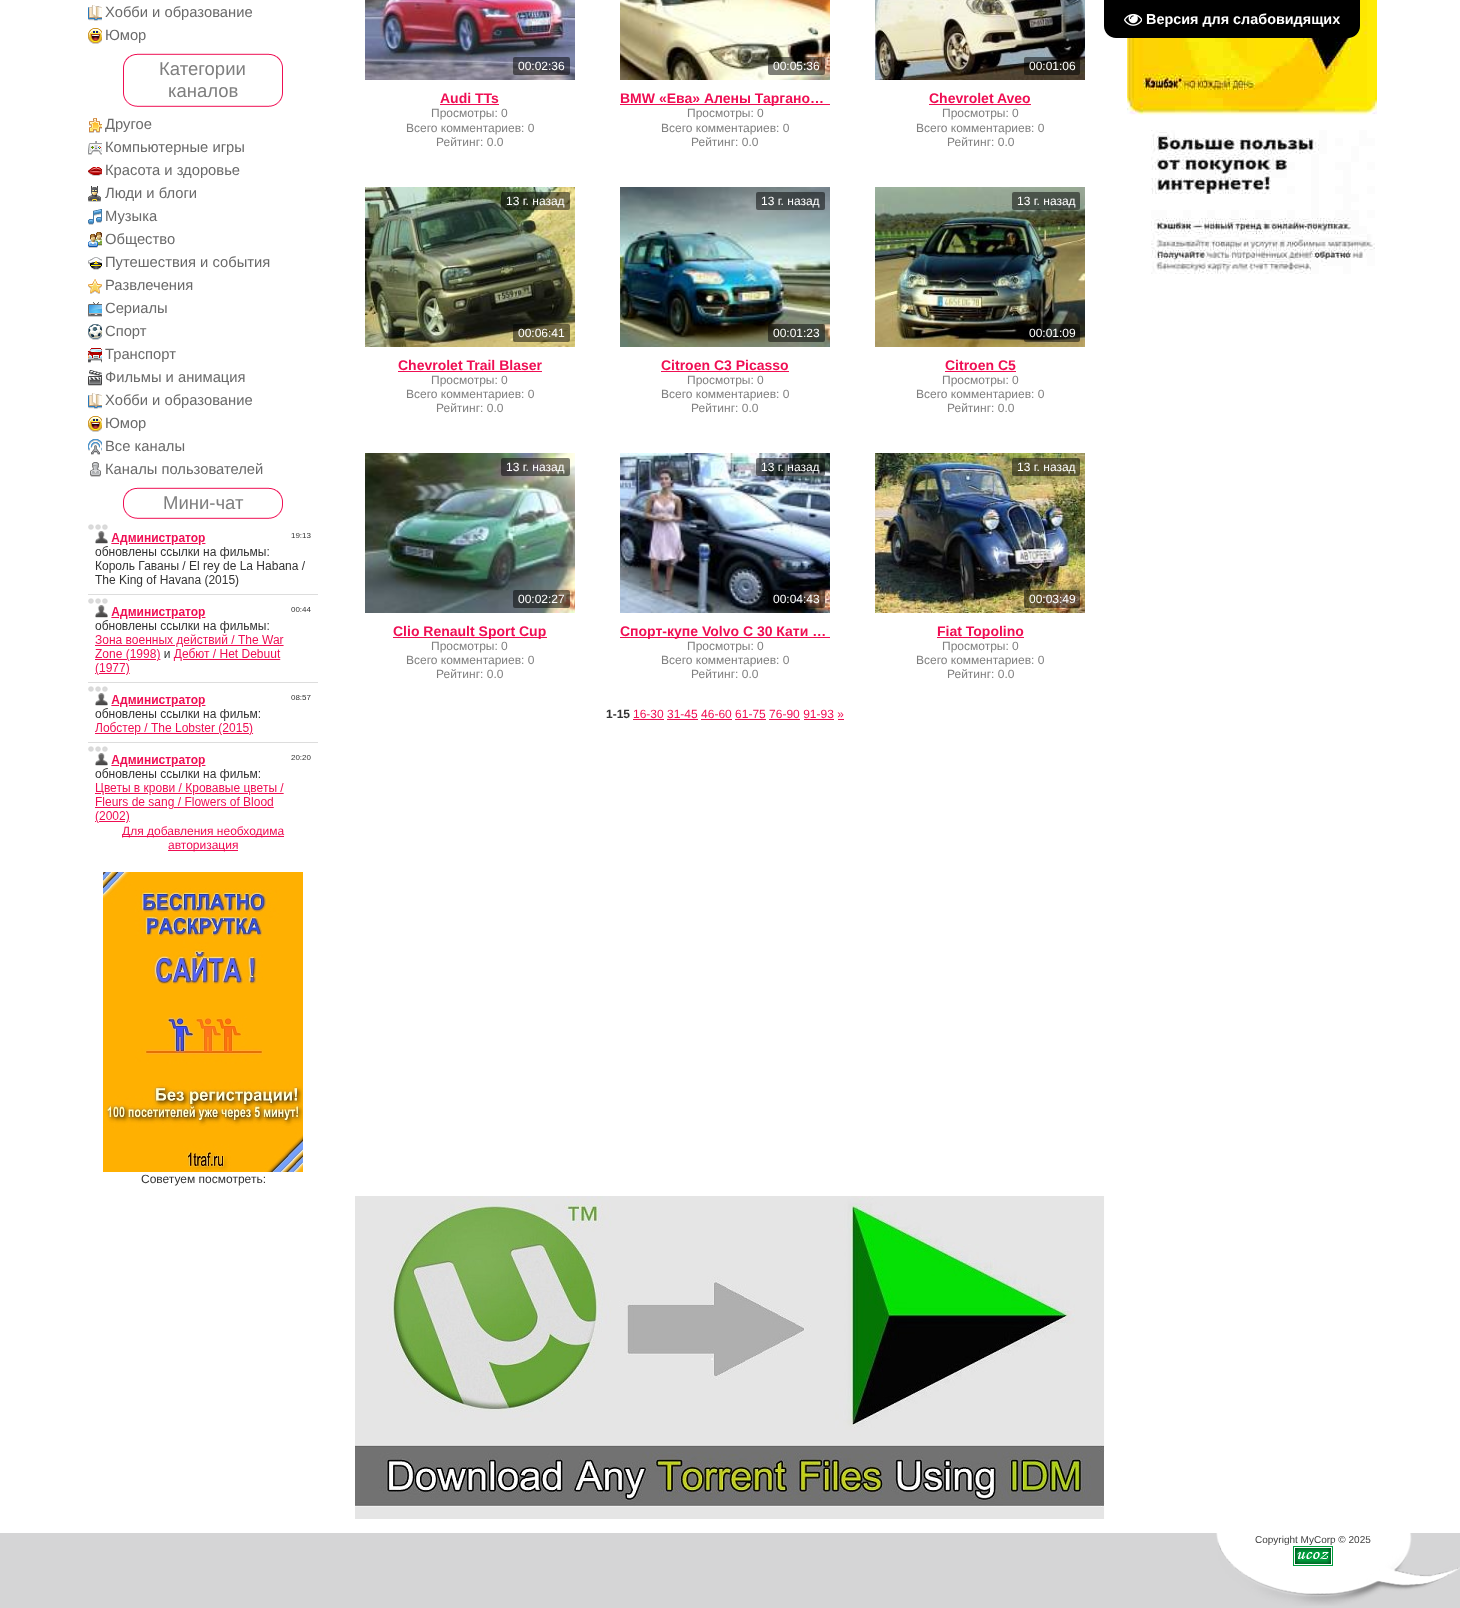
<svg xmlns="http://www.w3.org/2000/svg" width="1460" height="1608">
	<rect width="100%" height="100%" fill="#FFFFFF" />
	<image x="88" y="5" width="14" height="16" href="assets/img1.png" />
	<text x="105" y="17" font-family="Liberation Sans" font-size="14.75" fill="#6A6A6A">Хобби и образование</text>
	<image x="88" y="28" width="14" height="16" href="assets/img2.png" />
	<text x="105" y="40" font-family="Liberation Sans" font-size="14.75" fill="#6A6A6A">Юмор</text>
	<image x="123" y="53" width="160" height="40" href="assets/img3.png" />
	<image x="123" y="93" width="160" height="14" href="assets/img4.png" />
	<g font-family="Liberation Sans" font-size="18.5" fill="#7F7F7F">
		<text x="159" y="75">Категории</text>
		<text x="168" y="97">каналов</text>
	</g>
	<image x="89" y="118" width="13" height="15" href="assets/img5.png" />
	<text x="105" y="129" font-family="Liberation Sans" font-size="14.75" fill="#6A6A6A">Другое</text>
	<image x="88" y="141" width="14" height="14" href="assets/img6.png" />
	<text x="105" y="152" font-family="Liberation Sans" font-size="14.75" fill="#6A6A6A">Компьютерные игры</text>
	<image x="88" y="167" width="14" height="9" href="assets/img7.png" />
	<text x="105" y="175" font-family="Liberation Sans" font-size="14.75" fill="#6A6A6A">Красота и здоровье</text>
	<image x="88" y="186" width="13" height="16" href="assets/img8.png" />
	<text x="105" y="198" font-family="Liberation Sans" font-size="14.75" fill="#6A6A6A">Люди и блоги</text>
	<image x="88" y="209" width="14" height="16" href="assets/img9.png" />
	<text x="105" y="221" font-family="Liberation Sans" font-size="14.75" fill="#6A6A6A">Музыка</text>
	<image x="88" y="232" width="14" height="16" href="assets/img10.png" />
	<text x="105" y="244" font-family="Liberation Sans" font-size="14.75" fill="#6A6A6A">Общество</text>
	<image x="88" y="257" width="14" height="13" href="assets/img11.png" />
	<text x="105" y="267" font-family="Liberation Sans" font-size="14.75" fill="#6A6A6A">Путешествия и события</text>
	<image x="88" y="279" width="14" height="15" href="assets/img12.png" />
	<text x="105" y="290" font-family="Liberation Sans" font-size="14.75" fill="#6A6A6A">Развлечения</text>
	<image x="88" y="302" width="14" height="15" href="assets/img13.png" />
	<text x="105" y="313" font-family="Liberation Sans" font-size="14.75" fill="#6A6A6A">Сериалы</text>
	<image x="88" y="324" width="14" height="16" href="assets/img14.png" />
	<text x="105" y="336" font-family="Liberation Sans" font-size="14.75" fill="#6A6A6A">Спорт</text>
	<image x="88" y="348" width="14" height="15" href="assets/img15.png" />
	<text x="105" y="359" font-family="Liberation Sans" font-size="14.75" fill="#6A6A6A">Транспорт</text>
	<image x="88" y="370" width="14" height="16" href="assets/img16.png" />
	<text x="105" y="382" font-family="Liberation Sans" font-size="14.75" fill="#6A6A6A">Фильмы и анимация</text>
	<image x="88" y="393" width="14" height="16" href="assets/img1.png" />
	<text x="105" y="405" font-family="Liberation Sans" font-size="14.75" fill="#6A6A6A">Хобби и образование</text>
	<image x="88" y="416" width="14" height="16" href="assets/img2.png" />
	<text x="105" y="428" font-family="Liberation Sans" font-size="14.75" fill="#6A6A6A">Юмор</text>
	<image x="88" y="439" width="14" height="16" href="assets/img17.png" />
	<text x="105" y="451" font-family="Liberation Sans" font-size="14.75" fill="#6A6A6A">Все каналы</text>
	<image x="90" y="462" width="11" height="15" href="assets/img18.png" />
	<text x="105" y="474" font-family="Liberation Sans" font-size="14.75" fill="#6A6A6A">Каналы пользователей</text>
	<image x="123" y="487" width="160" height="18" href="assets/img19.png" />
	<image x="123" y="505" width="160" height="14" href="assets/img4.png" />
	<text x="163" y="509" font-family="Liberation Sans" font-size="18.5" fill="#7F7F7F">Мини-чат</text>
	<image x="88" y="524" width="230" height="299" href="assets/img20.png" />
	<rect x="122" y="836" width="162" height="1" fill="#EF0E53" />
	<text x="122" y="835" font-family="Liberation Sans" font-size="12" fill="#EF0E53">Для добавления необходима</text>
	<rect x="168" y="850" width="70" height="1" fill="#EF0E53" />
	<text x="168" y="849" font-family="Liberation Sans" font-size="12" fill="#EF0E53">авторизация</text>
	<image x="103" y="872" width="200" height="300" href="assets/img21.png" />
	<text x="141" y="1183" font-family="Liberation Sans" font-size="12" fill="#333333">Советуем посмотреть:</text>
	<image x="365" y="0" width="210" height="80" href="assets/img22.png" />
	<rect x="513" y="57" width="57" height="18" rx="2" fill="#000000" fill-opacity="0.5" />
	<text x="518" y="70" font-family="Liberation Sans" font-size="12" fill="#FFFFFF">00:02:36</text>
	<text x="440" y="103" font-family="Liberation Sans" font-size="14" font-weight="700" fill="#EF0E53">Audi TTs</text>
	<rect x="440" y="104" width="59" height="1" fill="#EF0E53" />
	<g font-family="Liberation Sans" font-size="12" fill="#7F7F7F">
		<text x="431" y="117">Просмотры: 0</text>
		<text x="406" y="132">Всего комментариев: 0</text>
		<text x="436" y="146">Рейтинг: 0.0</text>
	</g>
	<image x="620" y="0" width="210" height="80" href="assets/img23.png" />
	<rect x="768" y="57" width="57" height="18" rx="2" fill="#000000" fill-opacity="0.5" />
	<text x="773" y="70" font-family="Liberation Sans" font-size="12" fill="#FFFFFF">00:05:36</text>
	<rect x="620" y="104" width="210" height="1" fill="#EF0E53" />
	<text x="620" y="103" font-family="Liberation Sans" font-size="14" font-weight="700" fill="#EF0E53">BMW «Ева» Алены Таргано…</text>
	<g font-family="Liberation Sans" font-size="12" fill="#7F7F7F">
		<text x="687" y="117">Просмотры: 0</text>
		<text x="661" y="132">Всего комментариев: 0</text>
		<text x="691" y="146">Рейтинг: 0.0</text>
	</g>
	<image x="875" y="0" width="210" height="80" href="assets/img24.png" />
	<rect x="1024" y="57" width="56" height="18" rx="2" fill="#000000" fill-opacity="0.5" />
	<text x="1029" y="70" font-family="Liberation Sans" font-size="12" fill="#FFFFFF">00:01:06</text>
	<text x="929" y="103" font-family="Liberation Sans" font-size="14" font-weight="700" fill="#EF0E53">Chevrolet Aveo</text>
	<rect x="929" y="104" width="102" height="1" fill="#EF0E53" />
	<g font-family="Liberation Sans" font-size="12" fill="#7F7F7F">
		<text x="942" y="117">Просмотры: 0</text>
		<text x="916" y="132">Всего комментариев: 0</text>
		<text x="947" y="146">Рейтинг: 0.0</text>
	</g>
	<image x="365" y="187" width="210" height="160" href="assets/img25.png" />
	<rect x="501" y="192" width="69" height="18" rx="2" fill="#000000" fill-opacity="0.5" />
	<text x="506" y="205" font-family="Liberation Sans" font-size="12" fill="#FFFFFF">13 г. назад</text>
	<rect x="513" y="324" width="57" height="18" rx="2" fill="#000000" fill-opacity="0.5" />
	<text x="518" y="337" font-family="Liberation Sans" font-size="12" fill="#FFFFFF">00:06:41</text>
	<text x="398" y="370" font-family="Liberation Sans" font-size="14" font-weight="700" fill="#EF0E53">Chevrolet Trail Blaser</text>
	<rect x="398" y="371" width="144" height="1" fill="#EF0E53" />
	<g font-family="Liberation Sans" font-size="12" fill="#7F7F7F">
		<text x="431" y="384">Просмотры: 0</text>
		<text x="406" y="398">Всего комментариев: 0</text>
		<text x="436" y="412">Рейтинг: 0.0</text>
	</g>
	<image x="620" y="187" width="210" height="160" href="assets/img26.png" />
	<rect x="756" y="192" width="69" height="18" rx="2" fill="#000000" fill-opacity="0.5" />
	<text x="761" y="205" font-family="Liberation Sans" font-size="12" fill="#FFFFFF">13 г. назад</text>
	<rect x="768" y="324" width="57" height="18" rx="2" fill="#000000" fill-opacity="0.5" />
	<text x="773" y="337" font-family="Liberation Sans" font-size="12" fill="#FFFFFF">00:01:23</text>
	<text x="661" y="370" font-family="Liberation Sans" font-size="14" font-weight="700" fill="#EF0E53">Citroen C3 Picasso</text>
	<rect x="661" y="371" width="128" height="1" fill="#EF0E53" />
	<g font-family="Liberation Sans" font-size="12" fill="#7F7F7F">
		<text x="687" y="384">Просмотры: 0</text>
		<text x="661" y="398">Всего комментариев: 0</text>
		<text x="691" y="412">Рейтинг: 0.0</text>
	</g>
	<image x="875" y="187" width="210" height="160" href="assets/img27.png" />
	<rect x="1012" y="192" width="68" height="18" rx="2" fill="#000000" fill-opacity="0.5" />
	<text x="1017" y="205" font-family="Liberation Sans" font-size="12" fill="#FFFFFF">13 г. назад</text>
	<rect x="1024" y="324" width="56" height="18" rx="2" fill="#000000" fill-opacity="0.5" />
	<text x="1029" y="337" font-family="Liberation Sans" font-size="12" fill="#FFFFFF">00:01:09</text>
	<text x="945" y="370" font-family="Liberation Sans" font-size="14" font-weight="700" fill="#EF0E53">Citroen C5</text>
	<rect x="945" y="371" width="71" height="1" fill="#EF0E53" />
	<g font-family="Liberation Sans" font-size="12" fill="#7F7F7F">
		<text x="942" y="384">Просмотры: 0</text>
		<text x="916" y="398">Всего комментариев: 0</text>
		<text x="947" y="412">Рейтинг: 0.0</text>
	</g>
	<image x="365" y="453" width="210" height="160" href="assets/img28.png" />
	<rect x="501" y="458" width="69" height="18" rx="2" fill="#000000" fill-opacity="0.5" />
	<text x="506" y="471" font-family="Liberation Sans" font-size="12" fill="#FFFFFF">13 г. назад</text>
	<rect x="513" y="590" width="57" height="18" rx="2" fill="#000000" fill-opacity="0.5" />
	<text x="518" y="603" font-family="Liberation Sans" font-size="12" fill="#FFFFFF">00:02:27</text>
	<rect x="393" y="637" width="154" height="1" fill="#EF0E53" />
	<text x="393" y="636" font-family="Liberation Sans" font-size="14" font-weight="700" fill="#EF0E53">Clio Renault Sport Cup</text>
	<g font-family="Liberation Sans" font-size="12" fill="#7F7F7F">
		<text x="431" y="650">Просмотры: 0</text>
		<text x="406" y="664">Всего комментариев: 0</text>
		<text x="436" y="678">Рейтинг: 0.0</text>
	</g>
	<image x="620" y="453" width="210" height="160" href="assets/img29.png" />
	<rect x="756" y="458" width="69" height="18" rx="2" fill="#000000" fill-opacity="0.5" />
	<text x="761" y="471" font-family="Liberation Sans" font-size="12" fill="#FFFFFF">13 г. назад</text>
	<rect x="768" y="590" width="57" height="18" rx="2" fill="#000000" fill-opacity="0.5" />
	<text x="773" y="603" font-family="Liberation Sans" font-size="12" fill="#FFFFFF">00:04:43</text>
	<rect x="620" y="637" width="210" height="1" fill="#EF0E53" />
	<text x="620" y="636" font-family="Liberation Sans" font-size="14" font-weight="700" fill="#EF0E53">Cпорт-купе Volvo C 30 Кати …</text>
	<g font-family="Liberation Sans" font-size="12" fill="#7F7F7F">
		<text x="687" y="650">Просмотры: 0</text>
		<text x="661" y="664">Всего комментариев: 0</text>
		<text x="691" y="678">Рейтинг: 0.0</text>
	</g>
	<image x="875" y="453" width="210" height="160" href="assets/img30.png" />
	<rect x="1012" y="458" width="68" height="18" rx="2" fill="#000000" fill-opacity="0.5" />
	<text x="1017" y="471" font-family="Liberation Sans" font-size="12" fill="#FFFFFF">13 г. назад</text>
	<rect x="1024" y="590" width="56" height="18" rx="2" fill="#000000" fill-opacity="0.5" />
	<text x="1029" y="603" font-family="Liberation Sans" font-size="12" fill="#FFFFFF">00:03:49</text>
	<rect x="937" y="637" width="87" height="1" fill="#EF0E53" />
	<text x="937" y="636" font-family="Liberation Sans" font-size="14" font-weight="700" fill="#EF0E53">Fiat Topolino</text>
	<g font-family="Liberation Sans" font-size="12" fill="#7F7F7F">
		<text x="942" y="650">Просмотры: 0</text>
		<text x="916" y="664">Всего комментариев: 0</text>
		<text x="947" y="678">Рейтинг: 0.0</text>
	</g>
	<text x="606" y="718" font-family="Liberation Sans" font-size="12" font-weight="700" fill="#333333">1-15</text>
	<text x="633" y="718" font-family="Liberation Sans" font-size="12" fill="#EF0E53">16-30 31-45 46-60 61-75 76-90 91-93 »</text>
	<rect x="633" y="719" width="31" height="1" fill="#EF0E53" />
	<rect x="667" y="719" width="31" height="1" fill="#EF0E53" />
	<rect x="701" y="719" width="31" height="1" fill="#EF0E53" />
	<rect x="735" y="719" width="31" height="1" fill="#EF0E53" />
	<rect x="769" y="719" width="31" height="1" fill="#EF0E53" />
	<rect x="804" y="719" width="30" height="1" fill="#EF0E53" />
	<rect x="838" y="719" width="6" height="1" fill="#EF0E53" />
	<image x="1127" y="0" width="250" height="274" href="assets/img31.png" />
	<image x="355" y="1196" width="750" height="323" href="assets/img32.png" />
	<rect x="0" y="1533" width="1460" height="75" fill="#D5D5D6" />
	<image x="1216" y="1533" width="244" height="73" href="assets/img33.png" />
	<text x="1255" y="1543" font-family="Liberation Sans" font-size="10" fill="#404040">Copyright MyCorp © 2025</text>
	<image x="1293" y="1546" width="40" height="20" href="assets/img34.png" />
	<path d="M1104 0H1360V26C1360 32.5 1354.5 38 1348 38H1116C1109.5 38 1104 32.5 1104 26Z" fill="#000000" />
	<image x="1124" y="13" width="18" height="13" href="assets/img35.png" />
	<text x="1146" y="24" font-family="Liberation Sans" font-size="14.4" font-weight="700" fill="#FFFFFF">Версия для слабовидящих</text>
</svg>
